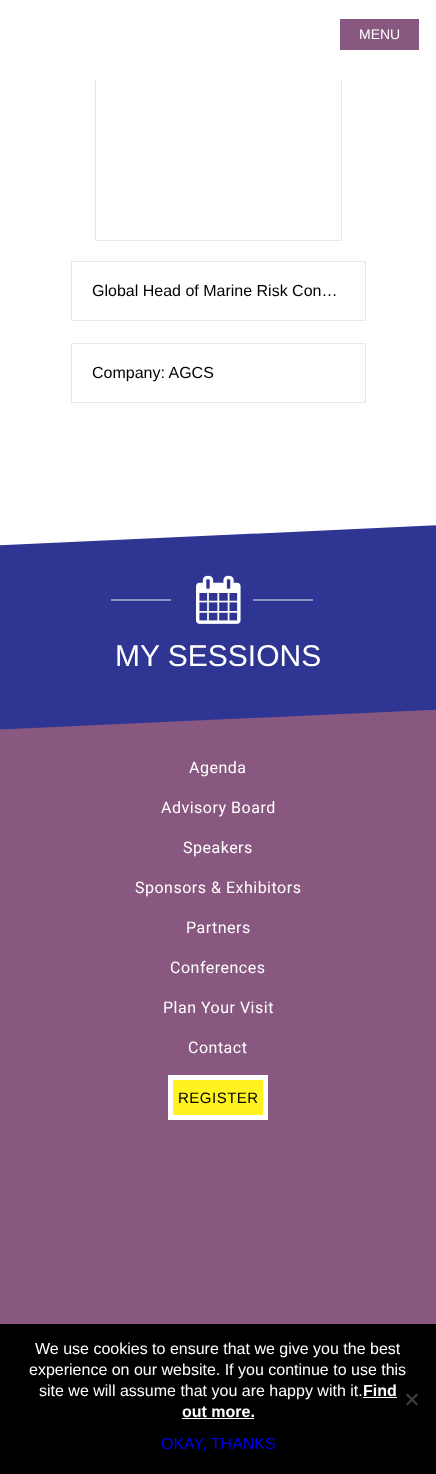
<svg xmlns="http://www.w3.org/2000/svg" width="436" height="1474">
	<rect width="100%" height="100%" fill="#FFFFFF" />
	<rect x="95.5" y="13.5" width="246" height="227" fill="none" stroke="#E9E9E9" />
	<rect x="95" y="13" width="247" height="67" fill="#FFFFFF" />
	<rect x="340" y="19" width="79" height="31" fill="#895881" />
	<text x="359" y="39" font-family="Liberation Sans" font-size="14" fill="#FFFFFF">MENU</text>
	<rect x="71.5" y="261.5" width="294" height="59" fill="none" stroke="#E9E9E9" />
	<text x="92" y="296" font-family="Liberation Sans" font-size="16" fill="#000000">Global Head of Marine Risk Con…</text>
	<rect x="71.5" y="343.5" width="294" height="59" fill="none" stroke="#E9E9E9" />
	<text x="92" y="378" font-family="Liberation Sans" font-size="16" fill="#000000">Company: AGCS</text>
	<path d="M-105 550L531 521L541 741L-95 770Z" fill="#2F3593" />
	<rect x="111" y="599" width="60" height="2" fill="#8E91C0" />
	<image x="196" y="575" width="45" height="49" href="assets/img1.png" />
	<rect x="253" y="599" width="60" height="2" fill="#8E91C0" />
	<text x="115" y="666" font-family="Liberation Sans" font-size="30" fill="#FFFFFF">MY SESSIONS</text>
	<path d="M-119 735L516 706L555 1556L-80 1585Z" fill="#895881" />
	<g font-family="Roboto" font-size="16" letter-spacing="0.5" fill="#FFFFFF">
		<text x="189" y="773">Agenda</text>
		<text x="161" y="813">Advisory Board</text>
		<text x="183" y="853">Speakers</text>
		<text x="135" y="893">Sponsors &amp; Exhibitors</text>
		<text x="186" y="933">Partners</text>
		<text x="170" y="973">Conferences</text>
		<text x="163" y="1013">Plan Your Visit</text>
		<text x="188" y="1053">Contact</text>
	</g>
	<rect x="170.5" y="1077.5" width="95" height="40" fill="#FFF21F" stroke="#FFFFFF" stroke-width="5" />
	<text x="178" y="1103" font-family="Liberation Sans" font-size="15" letter-spacing="0.5" fill="#000000">REGISTER</text>
	<rect x="0" y="1324" width="436" height="150" fill="#000000" />
	<g font-family="Liberation Sans" font-size="16" fill="#FFFFFF">
		<text x="35" y="1354">We use cookies to ensure that we give you the best</text>
		<text x="29" y="1375">experience on our website. If you continue to use this</text>
		<text x="39" y="1396">site we will assume that you are happy with it.</text>
	</g>
	<rect x="363" y="1397" width="34" height="1" fill="#FFFFFF" />
	<g font-family="Liberation Sans" font-size="16" font-weight="700" fill="#FFFFFF">
		<text x="363" y="1396">Find</text>
		<text x="182" y="1417">out more.</text>
	</g>
	<rect x="182" y="1418" width="72" height="1" fill="#FFFFFF" />
	<path d="M416.5 1393.5L418 1395L407.5 1405.5L406 1404Z" fill="#404040" />
	<path d="M406 1395L407.5 1393.5L418 1404L416.5 1405.5Z" fill="#404040" />
	<text x="161" y="1449" font-family="Liberation Sans" font-size="16" fill="#0000EE">OKAY, THANKS</text>
</svg>
